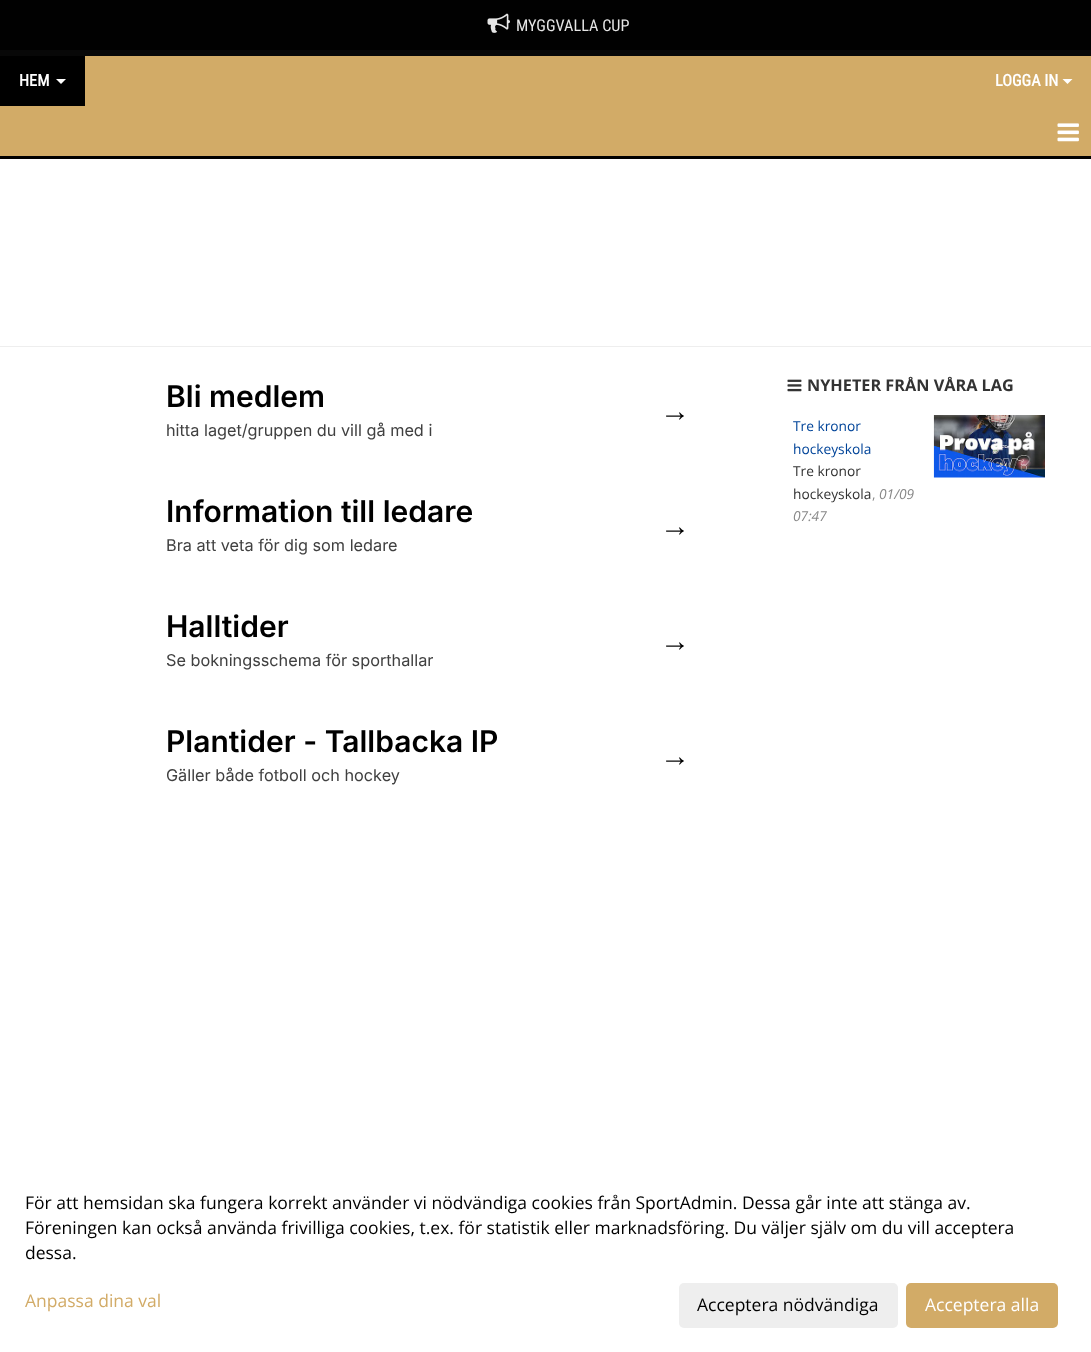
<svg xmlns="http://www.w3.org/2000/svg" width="1091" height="1352">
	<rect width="100%" height="100%" fill="#080808" />
	<rect x="0" y="0" width="1091" height="50" fill="#010101" />
	<image x="487" y="13" width="23" height="20" href="assets/img1.png" />
	<text x="516" y="31" font-family="Roboto Condensed" font-size="16.25" fill="#E6E6E6">MYGGVALLA CUP</text>
	<rect x="85" y="56" width="1006" height="50" fill="#D2AB67" />
	<rect x="0" y="56" width="85" height="50" fill="#000000" />
	<text x="19" y="86" font-family="Roboto Condensed" font-size="16.25" font-weight="700" fill="#FFFFFF">HEM</text>
	<path d="M56 79H66L61 84Z" fill="#FFFFFF" />
	<text x="995" y="86" font-family="Roboto Condensed" font-size="16.25" font-weight="700" fill="#FFFFFF">LOGGA IN</text>
	<path d="M1062.5 79H1072.5L1067.5 84Z" fill="#FFFFFF" />
	<rect x="0" y="159" width="1091" height="1193" fill="#FFFFFF" />
	<rect x="0" y="106" width="1091" height="50" fill="#D2AB67" />
	<rect x="0" y="156" width="1091" height="3" fill="#000000" />
	<image x="1057" y="123" width="22" height="19" href="assets/img2.png" />
	<rect x="0" y="346" width="1091" height="1" fill="#EEEEEE" />
	<text x="166" y="407" font-family="Inter" font-size="30" font-weight="600" fill="#000000">Bli medlem</text>
	<text x="166" y="436" font-family="Inter" font-size="16.25" fill="#404040">hitta laget/gruppen du vill gå med i</text>
	<text x="660" y="421" font-family="Liberation Sans" font-size="30" fill="#000000">→</text>
	<text x="166" y="522" font-family="Inter" font-size="30" font-weight="600" fill="#000000">Information till ledare</text>
	<text x="166" y="551" font-family="Inter" font-size="16.25" fill="#404040">Bra att veta för dig som ledare</text>
	<text x="660" y="536" font-family="Liberation Sans" font-size="30" fill="#000000">→</text>
	<text x="166" y="637" font-family="Inter" font-size="30" font-weight="600" fill="#000000">Halltider</text>
	<text x="166" y="666" font-family="Inter" font-size="16.25" fill="#404040">Se bokningsschema för sporthallar</text>
	<text x="660" y="651" font-family="Liberation Sans" font-size="30" fill="#000000">→</text>
	<text x="166" y="752" font-family="Inter" font-size="30" font-weight="600" fill="#000000">Plantider - Tallbacka IP</text>
	<text x="166" y="781" font-family="Inter" font-size="16.25" fill="#404040">Gäller både fotboll och hockey</text>
	<text x="660" y="766" font-family="Liberation Sans" font-size="30" fill="#000000">→</text>
	<image x="787" y="379" width="15" height="13" href="assets/img3.png" />
	<text x="807" y="391" font-family="Open Sans" font-size="16.25" font-weight="700" fill="#333333">NYHETER FRÅN VÅRA LAG</text>
	<g font-family="Open Sans" font-size="13.75" fill="#004499">
		<text x="793" y="431">Tre kronor</text>
		<text x="793" y="454">hockeyskola</text>
	</g>
	<image x="933" y="415" width="112" height="63" href="assets/img4.png" />
	<g font-family="Open Sans" font-size="13.75" fill="#333333">
		<text x="793" y="476">Tre kronor</text>
		<text x="793" y="499">hockeyskola</text>
	</g>
	<text x="872" y="499" font-family="Open Sans" font-size="13.75" fill="#888888">,</text>
	<g font-family="Open Sans" font-size="13.75" font-style="italic" fill="#888888">
		<text x="879" y="499">01/09</text>
		<text x="793" y="521">07:47</text>
	</g>
	<g font-family="Open Sans" font-size="17.5" fill="#000000">
		<text x="25" y="1209">För att hemsidan ska fungera korrekt använder vi nödvändiga cookies från SportAdmin. Dessa går inte att stänga av.</text>
		<text x="25" y="1234">Föreningen kan också använda frivilliga cookies, t.ex. för statistik eller marknadsföring. Du väljer själv om du vill acceptera</text>
		<text x="25" y="1259">dessa.</text>
	</g>
	<text x="25" y="1307" font-family="Open Sans" font-size="17.5" fill="#D2AB67">Anpassa dina val</text>
	<rect x="679" y="1283" width="219" height="45" rx="5" fill="#EEEEEE" />
	<text x="697" y="1311" font-family="Open Sans" font-size="17.5" fill="#000000">Acceptera nödvändiga</text>
	<rect x="906" y="1283" width="152" height="45" rx="5" fill="#D2AB67" />
	<text x="925" y="1311" font-family="Open Sans" font-size="17.5" fill="#FFFFFF">Acceptera alla</text>
</svg>
